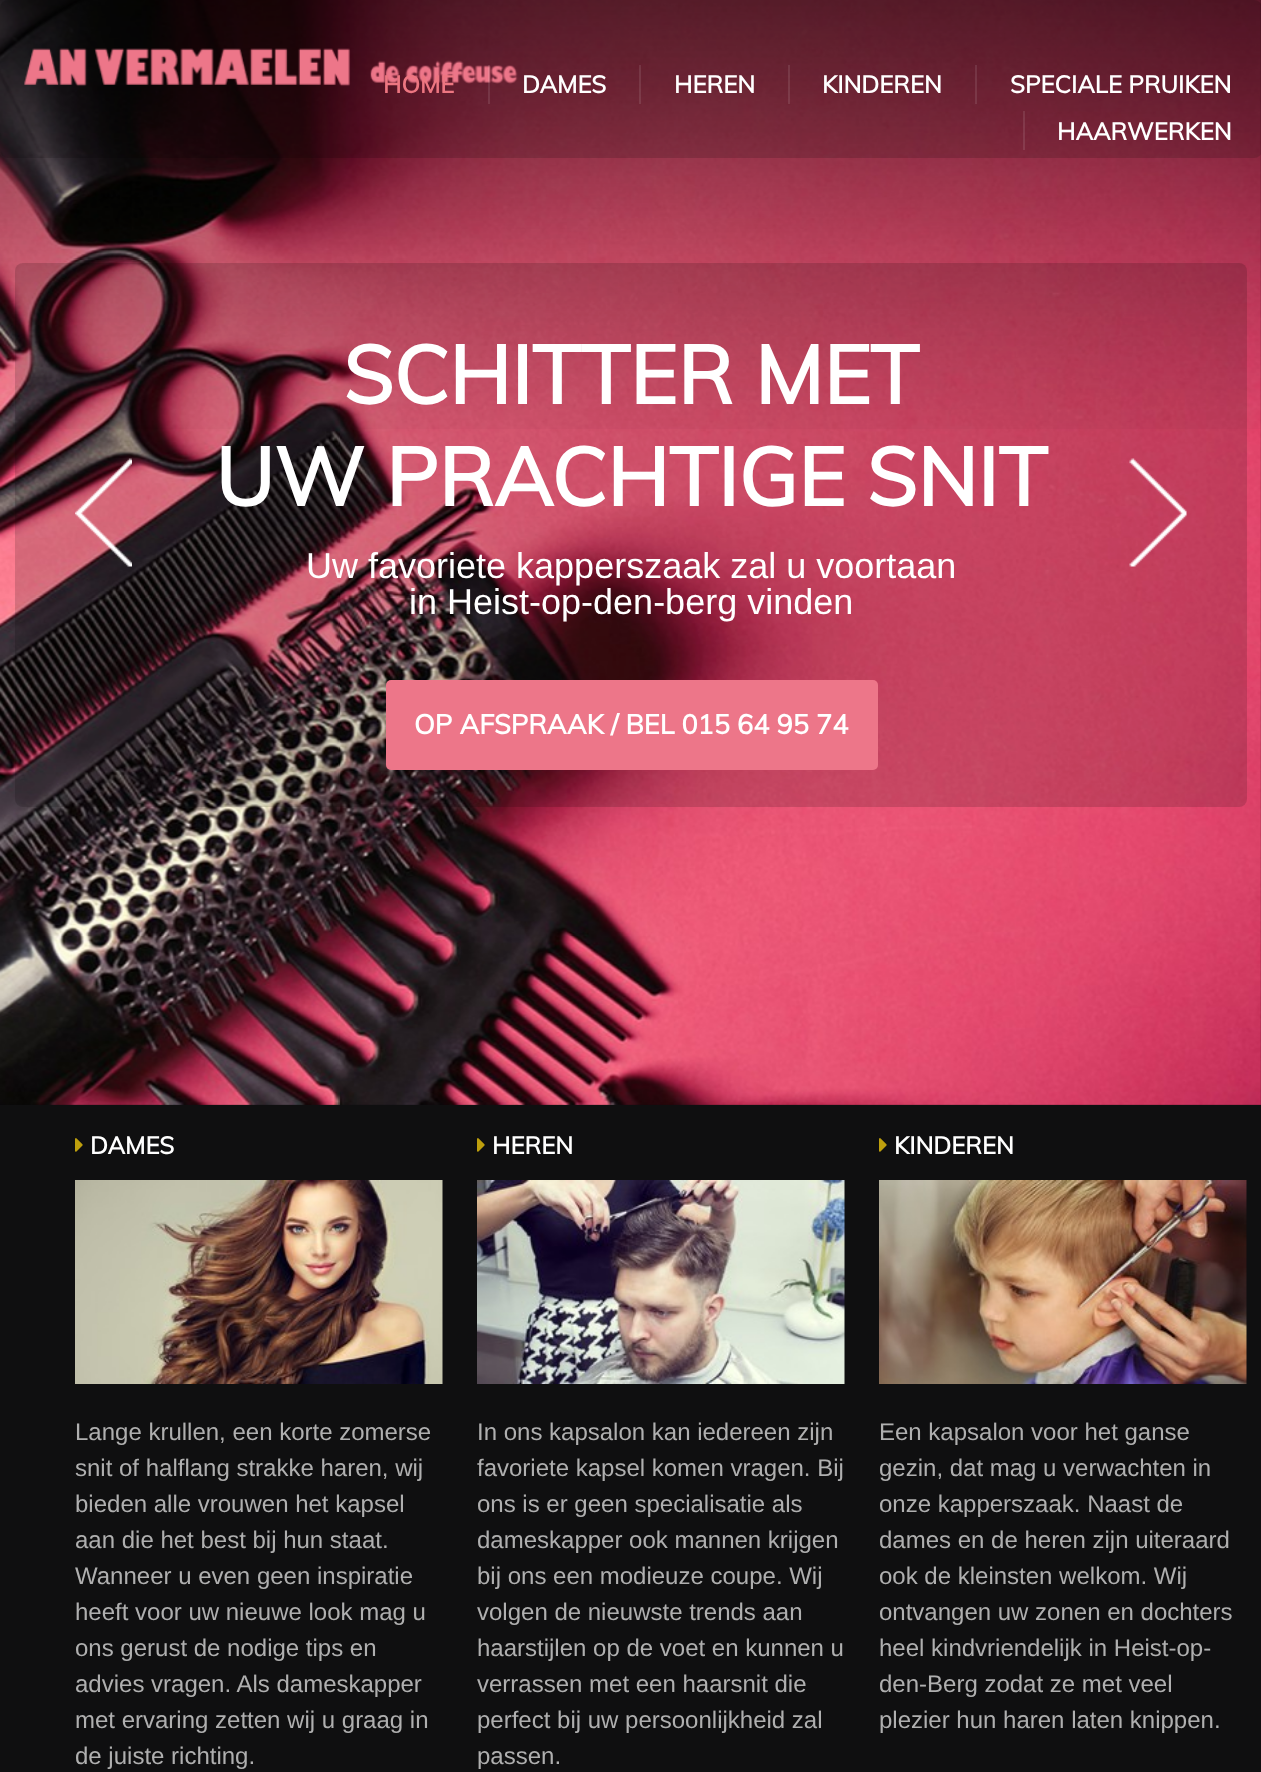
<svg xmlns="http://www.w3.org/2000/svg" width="1261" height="1772">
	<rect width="100%" height="100%" fill="#0F0F10" />
	<image x="0" y="0" width="1261" height="1105" href="assets/img2.png" />
	<image x="0" y="0" width="1261" height="429" href="assets/img3.png" />
	<rect x="0" y="0" width="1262" height="158" rx="8" fill="#000000" fill-opacity="0.15" />
	<image x="24" y="48" width="494" height="39" href="assets/img1.png" />
	<text x="383" y="93" font-family="Muli" font-size="24" font-weight="700" fill="#ED7681">HOME</text>
	<rect x="488" y="65" width="2" height="39" fill="#FFFFFF" fill-opacity="0.1" />
	<text x="522" y="93" font-family="Muli" font-size="24" font-weight="700" fill="#FFFFFF">DAMES</text>
	<rect x="639" y="65" width="2" height="39" fill="#FFFFFF" fill-opacity="0.1" />
	<text x="674" y="93" font-family="Muli" font-size="24" font-weight="700" fill="#FFFFFF">HEREN</text>
	<rect x="788" y="65" width="2" height="39" fill="#FFFFFF" fill-opacity="0.1" />
	<text x="822" y="93" font-family="Muli" font-size="24" font-weight="700" fill="#FFFFFF">KINDEREN</text>
	<rect x="975" y="65" width="2" height="39" fill="#FFFFFF" fill-opacity="0.1" />
	<text x="1010" y="93" font-family="Muli" font-size="24" font-weight="700" fill="#FFFFFF">SPECIALE PRUIKEN</text>
	<rect x="1023" y="111" width="2" height="39" fill="#FFFFFF" fill-opacity="0.1" />
	<text x="1057" y="140" font-family="Muli" font-size="24" font-weight="700" fill="#FFFFFF">HAARWERKEN</text>
	<rect x="15" y="263" width="1232" height="544" rx="8" fill="#000000" fill-opacity="0.15" />
	<g font-family="Muli" font-size="81" font-weight="700" fill="#FFFFFF">
		<text x="343" y="404">SCHITTER MET</text>
		<text x="215" y="506">UW PRACHTIGE SNIT</text>
	</g>
	<g font-family="Liberation Sans" font-size="36" fill="#FFFFFF">
		<text x="306" y="578">Uw favoriete kapperszaak zal u voortaan</text>
		<text x="409" y="614">in Heist-op-den-berg vinden</text>
	</g>
	<rect x="386" y="680" width="492" height="90" rx="5" fill="#ED7689" />
	<text x="414" y="734" font-family="Muli" font-size="27" font-weight="700" fill="#FFFFFF">OP AFSPRAAK / BEL 015 64 95 74</text>
	<image x="75" y="458" width="57" height="109" href="assets/img4.png" />
	<image x="1129" y="458" width="58" height="109" href="assets/img5.png" />
	<image x="75" y="1138" width="8" height="14" href="assets/img6.png" />
	<text x="90" y="1154" font-family="Muli" font-size="24" font-weight="700" fill="#FFFFFF">DAMES</text>
	<image x="75" y="1180" width="368" height="204" href="assets/img7.png" />
	<g font-family="Liberation Sans" font-size="24" fill="#AFAFAF">
		<text x="75" y="1440">Lange krullen, een korte zomerse</text>
		<text x="75" y="1476">snit of halflang strakke haren, wij</text>
		<text x="75" y="1512">bieden alle vrouwen het kapsel</text>
		<text x="75" y="1548">aan die het best bij hun staat.</text>
		<text x="75" y="1584">Wanneer u even geen inspiratie</text>
		<text x="75" y="1620">heeft voor uw nieuwe look mag u</text>
		<text x="75" y="1656">ons gerust de nodige tips en</text>
		<text x="75" y="1692">advies vragen. Als dameskapper</text>
		<text x="75" y="1728">met ervaring zetten wij u graag in</text>
		<text x="75" y="1764">de juiste richting.</text>
	</g>
	<image x="477" y="1138" width="8" height="14" href="assets/img6.png" />
	<text x="492" y="1154" font-family="Muli" font-size="24" font-weight="700" fill="#FFFFFF">HEREN</text>
	<image x="477" y="1180" width="368" height="204" href="assets/img8.png" />
	<g font-family="Liberation Sans" font-size="24" fill="#AFAFAF">
		<text x="477" y="1440">In ons kapsalon kan iedereen zijn</text>
		<text x="477" y="1476">favoriete kapsel komen vragen. Bij</text>
		<text x="477" y="1512">ons is er geen specialisatie als</text>
		<text x="477" y="1548">dameskapper ook mannen krijgen</text>
		<text x="477" y="1584">bij ons een modieuze coupe. Wij</text>
		<text x="477" y="1620">volgen de nieuwste trends aan</text>
		<text x="477" y="1656">haarstijlen op de voet en kunnen u</text>
		<text x="477" y="1692">verrassen met een haarsnit die</text>
		<text x="477" y="1728">perfect bij uw persoonlijkheid zal</text>
		<text x="477" y="1764">passen.</text>
	</g>
	<image x="879" y="1138" width="8" height="14" href="assets/img6.png" />
	<text x="894" y="1154" font-family="Muli" font-size="24" font-weight="700" fill="#FFFFFF">KINDEREN</text>
	<image x="879" y="1180" width="368" height="204" href="assets/img9.png" />
	<g font-family="Liberation Sans" font-size="24" fill="#AFAFAF">
		<text x="879" y="1440">Een kapsalon voor het ganse</text>
		<text x="879" y="1476">gezin, dat mag u verwachten in</text>
		<text x="879" y="1512">onze kapperszaak. Naast de</text>
		<text x="879" y="1548">dames en de heren zijn uiteraard</text>
		<text x="879" y="1584">ook de kleinsten welkom. Wij</text>
		<text x="879" y="1620">ontvangen uw zonen en dochters</text>
		<text x="879" y="1656">heel kindvriendelijk in Heist-op-</text>
		<text x="879" y="1692">den-Berg zodat ze met veel</text>
		<text x="879" y="1728">plezier hun haren laten knippen.</text>
	</g>
</svg>
